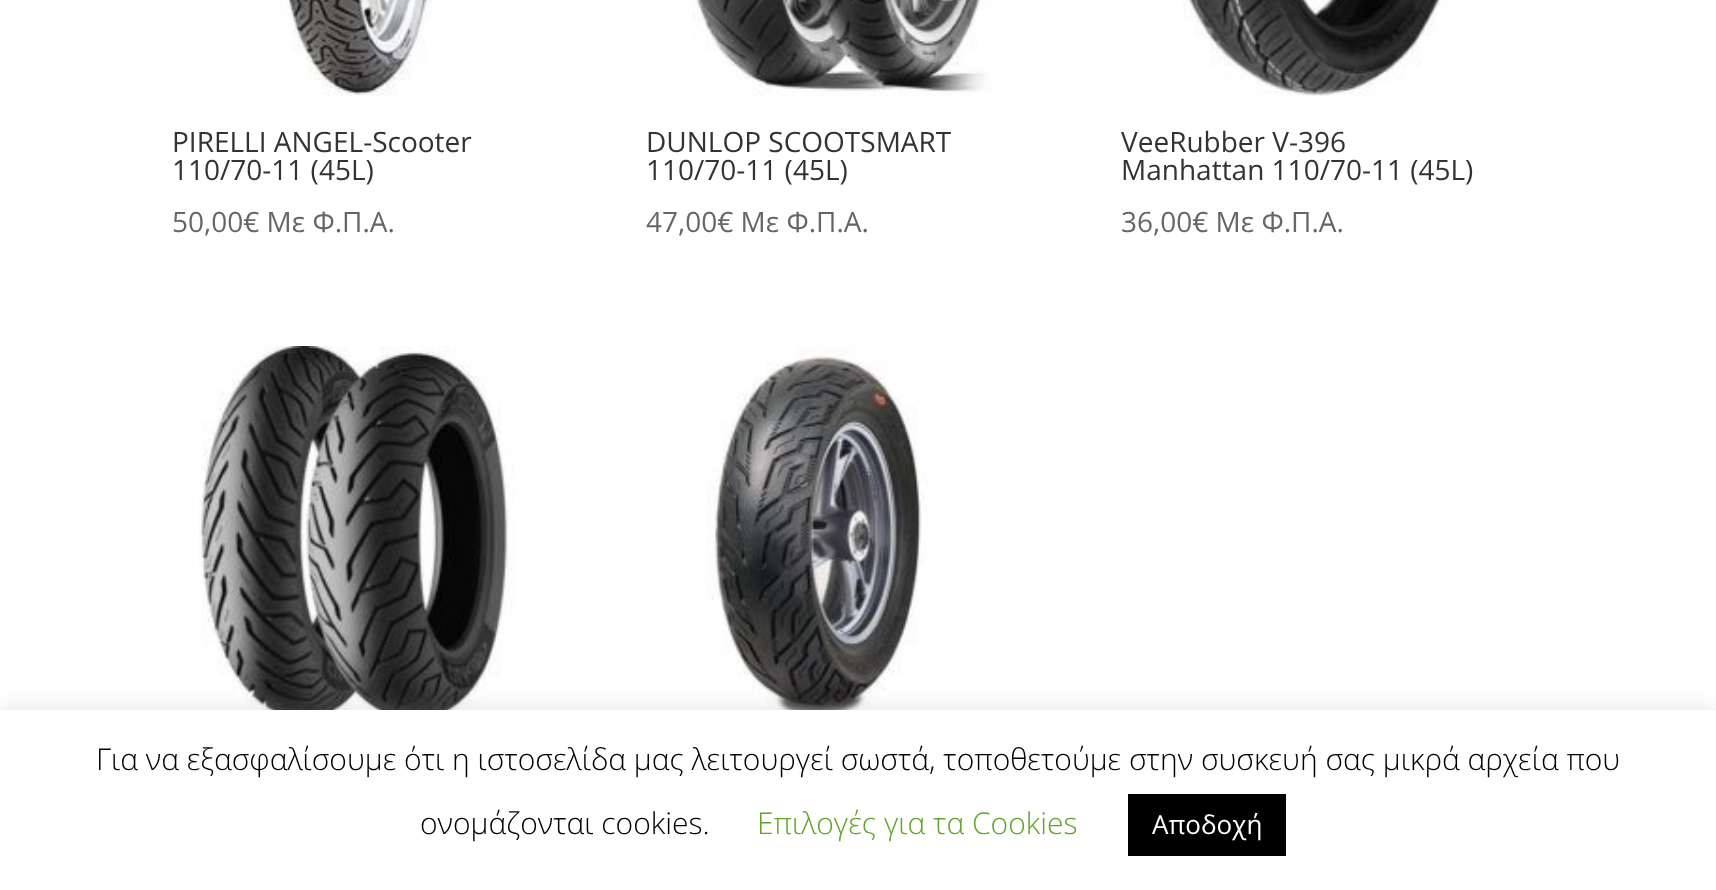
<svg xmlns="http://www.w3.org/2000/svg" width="1716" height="890">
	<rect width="100%" height="100%" fill="#FFFFFF" />
	<image x="279" y="0" width="153" height="96" href="assets/img1.png" />
	<g font-family="Open Sans" font-size="28" fill="#333333">
		<text x="172" y="152">PIRELLI ANGEL-Scooter</text>
		<text x="172" y="180">110/70-11 (45L)</text>
	</g>
	<text x="172" y="232" font-family="Open Sans" font-size="28" fill="#666666">50,00€ Με Φ.Π.Α.</text>
	<image x="692" y="0" width="299" height="96" href="assets/img2.png" />
	<g font-family="Open Sans" font-size="28" fill="#333333">
		<text x="646" y="152">DUNLOP SCOOTSMART</text>
		<text x="646" y="180">110/70-11 (45L)</text>
	</g>
	<text x="646" y="232" font-family="Open Sans" font-size="28" fill="#666666">47,00€ Με Φ.Π.Α.</text>
	<image x="1182" y="0" width="265" height="96" href="assets/img3.png" />
	<g font-family="Open Sans" font-size="28" fill="#333333">
		<text x="1121" y="152">VeeRubber V-396</text>
		<text x="1121" y="180">Manhattan 110/70-11 (45L)</text>
	</g>
	<text x="1121" y="232" font-family="Open Sans" font-size="28" fill="#666666">36,00€ Με Φ.Π.Α.</text>
	<image x="199" y="346" width="317" height="364" href="assets/img4.png" />
	<image x="706" y="346" width="222" height="364" href="assets/img5.png" />
	<rect x="0" y="708" width="1716" height="180" fill="#ACABAB" fill-opacity="0.3" filter="blur(10px)" />
	<rect x="0" y="710" width="1716" height="180" fill="#FFFFFF" />
	<g font-family="Open Sans" font-size="30" font-weight="300" fill="#000000">
		<text x="96" y="770">Για να εξασφαλίσουμε ότι η ιστοσελίδα μας λειτουργεί σωστά, τοποθετούμε στην συσκευή σας μικρά αρχεία που</text>
		<text x="420" y="834">ονομάζονται cookies.</text>
	</g>
	<text x="757" y="834" font-family="Open Sans" font-size="30" font-weight="300" fill="#62A329">Επιλογές για τα Cookies</text>
	<rect x="1128" y="794" width="158" height="62" fill="#000000" />
	<text x="1152" y="834" font-family="Open Sans" font-size="26" fill="#FFFFFF">Αποδοχή</text>
</svg>
